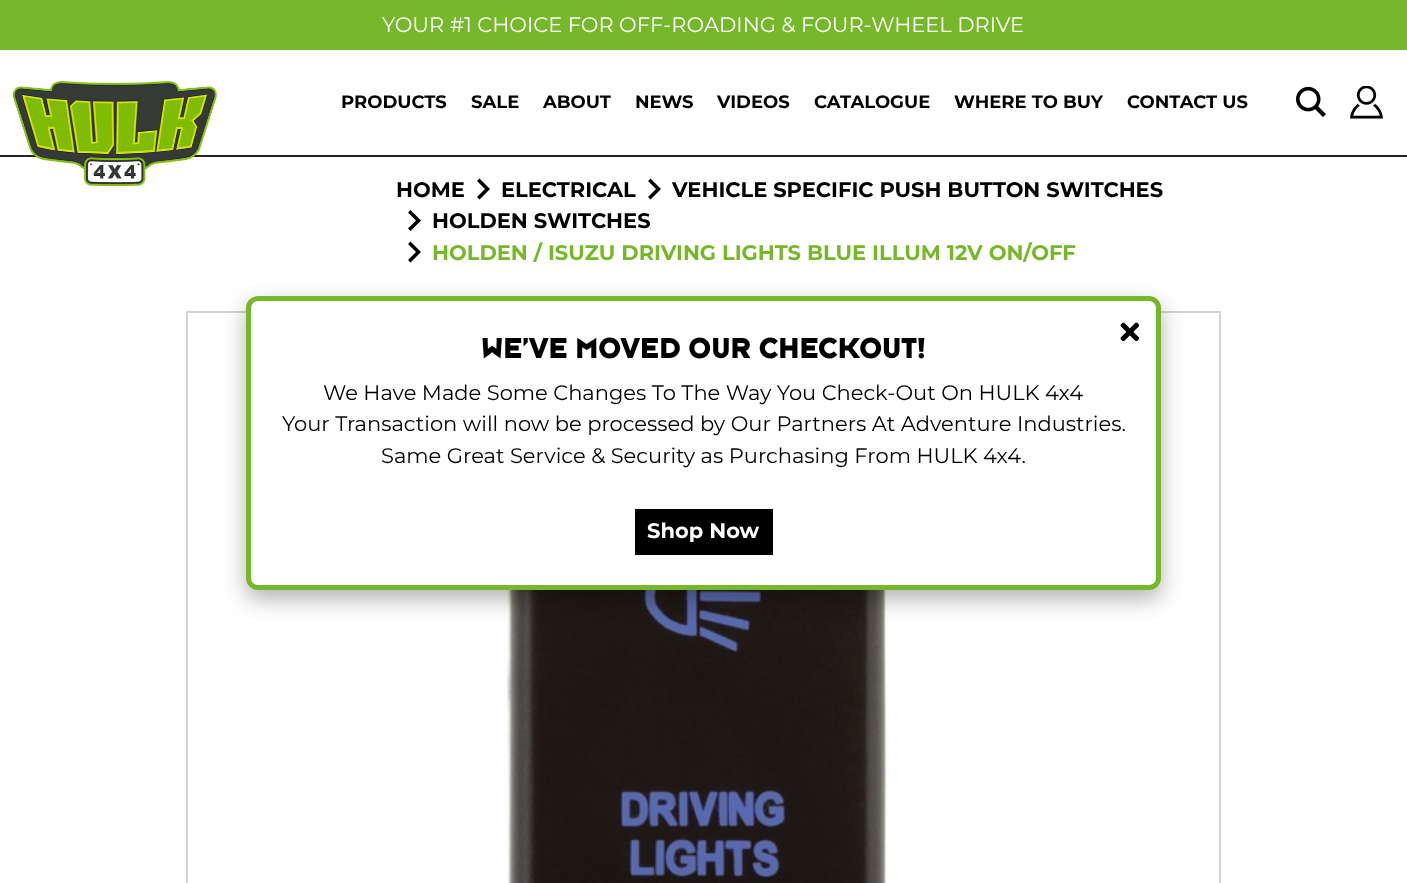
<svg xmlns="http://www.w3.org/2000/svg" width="1407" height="883">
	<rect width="100%" height="100%" fill="#FFFFFF" />
	<rect x="0" y="0" width="1407" height="50" fill="#76B82A" />
	<text x="382" y="32" font-family="Montserrat" font-size="21" fill="#FFFFFF">YOUR #1 CHOICE FOR OFF-ROADING &amp; FOUR-WHEEL DRIVE</text>
	<rect x="0" y="155" width="1407" height="2" fill="#212529" />
	<image x="12" y="81" width="206" height="105" href="assets/img1.png" />
	<g font-family="Montserrat" font-size="18" font-weight="700" fill="#000000">
		<text x="341" y="108">PRODUCTS</text>
		<text x="471" y="108">SALE</text>
		<text x="543" y="108">ABOUT</text>
		<text x="635" y="108">NEWS</text>
		<text x="717" y="108">VIDEOS</text>
		<text x="814" y="108">CATALOGUE</text>
		<text x="954" y="108">WHERE TO BUY</text>
		<text x="1127" y="108">CONTACT US</text>
	</g>
	<image x="1296" y="86" width="30" height="31" href="assets/img2.png" />
	<image x="1350" y="86" width="33" height="33" href="assets/img3.png" />
	<text x="396" y="197" font-family="Montserrat" font-size="21" font-weight="700" fill="#000000">HOME</text>
	<path d="M477 181L479.5 178.5L490 189L479.5 199.5L477 197L485 189Z" fill="#000000" />
	<text x="501" y="197" font-family="Montserrat" font-size="21" font-weight="700" fill="#000000">ELECTRICAL</text>
	<path d="M648 181L650.5 178.5L661 189L650.5 199.5L648 197L656 189Z" fill="#000000" />
	<text x="672" y="197" font-family="Montserrat" font-size="21" font-weight="700" fill="#000000">VEHICLE SPECIFIC PUSH BUTTON SWITCHES</text>
	<path d="M408 212.5L410.5 210L421 220.5L410.5 231L408 228.5L416 220.5Z" fill="#000000" />
	<text x="432" y="228" font-family="Montserrat" font-size="21" font-weight="700" fill="#000000">HOLDEN SWITCHES</text>
	<path d="M408 244L410.5 241.5L421 252L410.5 262.5L408 260L416 252Z" fill="#000000" />
	<text x="432" y="260" font-family="Montserrat" font-size="21" font-weight="700" fill="#76B82A">HOLDEN / ISUZU DRIVING LIGHTS BLUE ILLUM 12V ON/OFF</text>
	<rect x="187" y="312" width="1033" height="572" fill="none" stroke="#D3D3D3" stroke-width="2" />
	<image x="504" y="590" width="385" height="293" href="assets/img4.png" />
	<rect x="246" y="305" width="915" height="294" rx="12" fill="#000000" fill-opacity="0.3" filter="blur(11px)" />
	<rect x="248.5" y="298.5" width="910" height="289" rx="9.5" fill="#FFFFFF" stroke="#76B82A" stroke-width="5" />
	<image x="1120" y="322" width="20" height="20" href="assets/img5.png" />
	<text x="481" y="358" font-family="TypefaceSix" font-size="30" font-weight="500" fill="#000000">WE’VE MOVED OUR CHECKOUT!</text>
	<g font-family="Montserrat" font-size="21" fill="#000000">
		<text x="323" y="400">We Have Made Some Changes To The Way You Check-Out On HULK 4x4</text>
		<text x="282" y="431">Your Transaction will now be processed by Our Partners At Adventure Industries.</text>
		<text x="381" y="463">Same Great Service &amp; Security as Purchasing From HULK 4x4.</text>
	</g>
	<rect x="635" y="509" width="138" height="46" fill="#000000" />
	<text x="647" y="538" font-family="Montserrat" font-size="21" font-weight="700" fill="#FFFFFF">Shop Now</text>
</svg>
